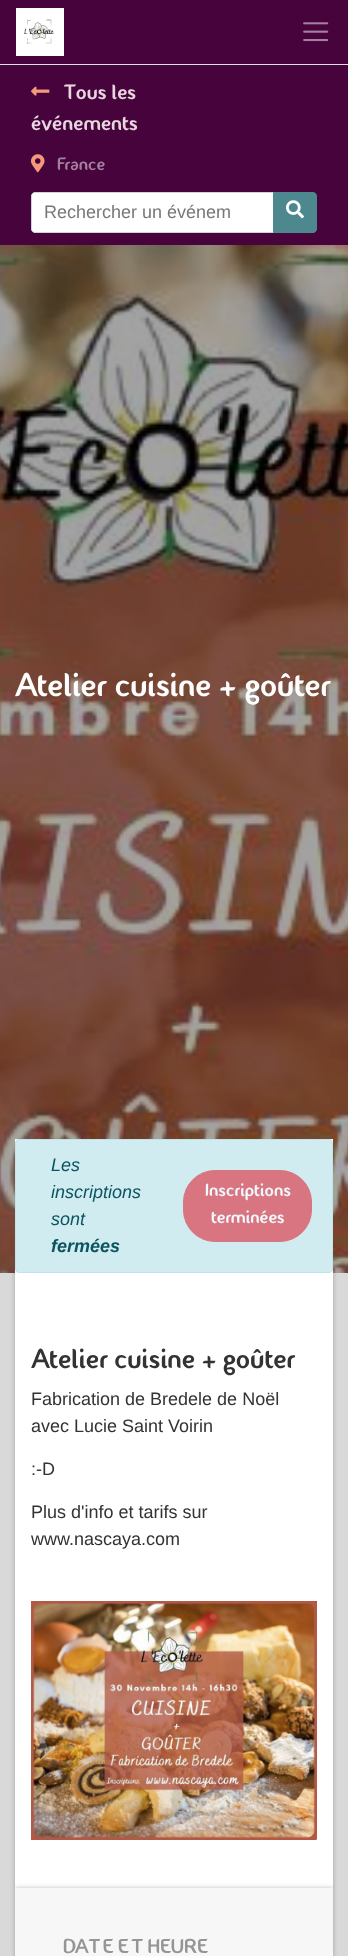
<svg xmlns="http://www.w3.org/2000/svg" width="348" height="1956">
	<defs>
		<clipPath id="clip1"><rect x="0" y="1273" width="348" height="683" /></clipPath>
	</defs>
	<rect width="100%" height="100%" fill="#47033C" />
	<image x="16" y="8" width="48" height="48" href="assets/img1.png" />
	<image x="303" y="22" width="26" height="20" href="assets/img2.png" />
	<rect x="0" y="64" width="348" height="1" fill="#DEE2E6" />
	<image x="31" y="86" width="19" height="10" href="assets/img3.png" />
	<g font-family="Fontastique" font-size="21" fill="#E7D6DE">
		<text x="64" y="99">Tous les</text>
		<text x="31" y="130">événements</text>
	</g>
	<image x="31" y="154" width="14" height="19" href="assets/img4.png" />
	<text x="57" y="170" font-family="Fontastique" font-size="18" fill="#A3819E">France</text>
	<path d="M35 192.5H273.5V232.5H35C33 232.5 31.5 231 31.5 229V196C31.5 194 33 192.5 35 192.5Z" fill="#FFFFFF" stroke="#CED4DA" />
	<text x="44" y="218" font-family="Liberation Sans" font-size="18" fill="#777777">Rechercher un événem</text>
	<path d="M273.5 192.5H313C315 192.5 316.5 194 316.5 196V229C316.5 231 315 232.5 313 232.5H273.5Z" fill="#4C888E" stroke="#4C888E" />
	<image x="286" y="200" width="18" height="19" href="assets/img5.png" />
	<image x="0" y="245" width="348" height="1028" href="assets/img6.png" />
	<text x="15" y="696" font-family="Fontastique" font-size="33" fill="#FFFFFF">Atelier cuisine + goûter</text>
	<rect x="15" y="1139" width="318" height="134" fill="#FFFFFF" />
	<rect x="15.5" y="1139.5" width="317" height="133" rx="3.5" fill="#D1ECF1" stroke="#BEE5EB" />
	<g font-family="Liberation Sans" font-size="18" font-style="italic" fill="#0C5460">
		<text x="51" y="1171">Les</text>
		<text x="51" y="1198">inscriptions</text>
		<text x="51" y="1225">sont</text>
	</g>
	<text x="51" y="1252" font-family="Liberation Sans" font-size="18" font-weight="700" font-style="italic" fill="#0C5460">fermées</text>
	<rect x="183.5" y="1170.5" width="128" height="71" rx="31.5" fill="#D87581" stroke="#D87581" />
	<g font-family="Fontastique" font-size="18" fill="#EFF8FA">
		<text x="205" y="1196">Inscriptions</text>
		<text x="211" y="1223">terminées</text>
	</g>
	<rect x="0" y="1273" width="348" height="683" fill="#D9D9D9" />
	<g clip-path="url(#clip1)">
		<rect x="15" y="1249" width="318" height="639" fill="#000000" fill-opacity="0.25" filter="blur(2.5px)" />
	</g>
	<rect x="15" y="1273" width="318" height="615" fill="#FFFFFF" />
	<text x="31" y="1368" font-family="Fontastique" font-size="27.6" fill="#333333">Atelier cuisine + goûter</text>
	<g font-family="Liberation Sans" font-size="18" fill="#333333">
		<text x="31" y="1405">Fabrication de Bredele de Noël</text>
		<text x="31" y="1432">avec Lucie Saint Voirin</text>
		<text x="31" y="1475">:-D</text>
		<text x="31" y="1518">Plus d'info et tarifs sur</text>
		<text x="31" y="1545">www.nascaya.com</text>
	</g>
	<image x="31" y="1601" width="286" height="239" href="assets/img7.png" />
	<rect x="15" y="1888" width="318" height="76" fill="#000000" fill-opacity="0.25" filter="blur(2.5px)" />
	<rect x="15" y="1888" width="318" height="68" fill="#F8F7F7" />
	<text x="63" y="1953" font-family="Fontastique" font-size="20.25" fill="#969595">DATE ET HEURE</text>
</svg>
